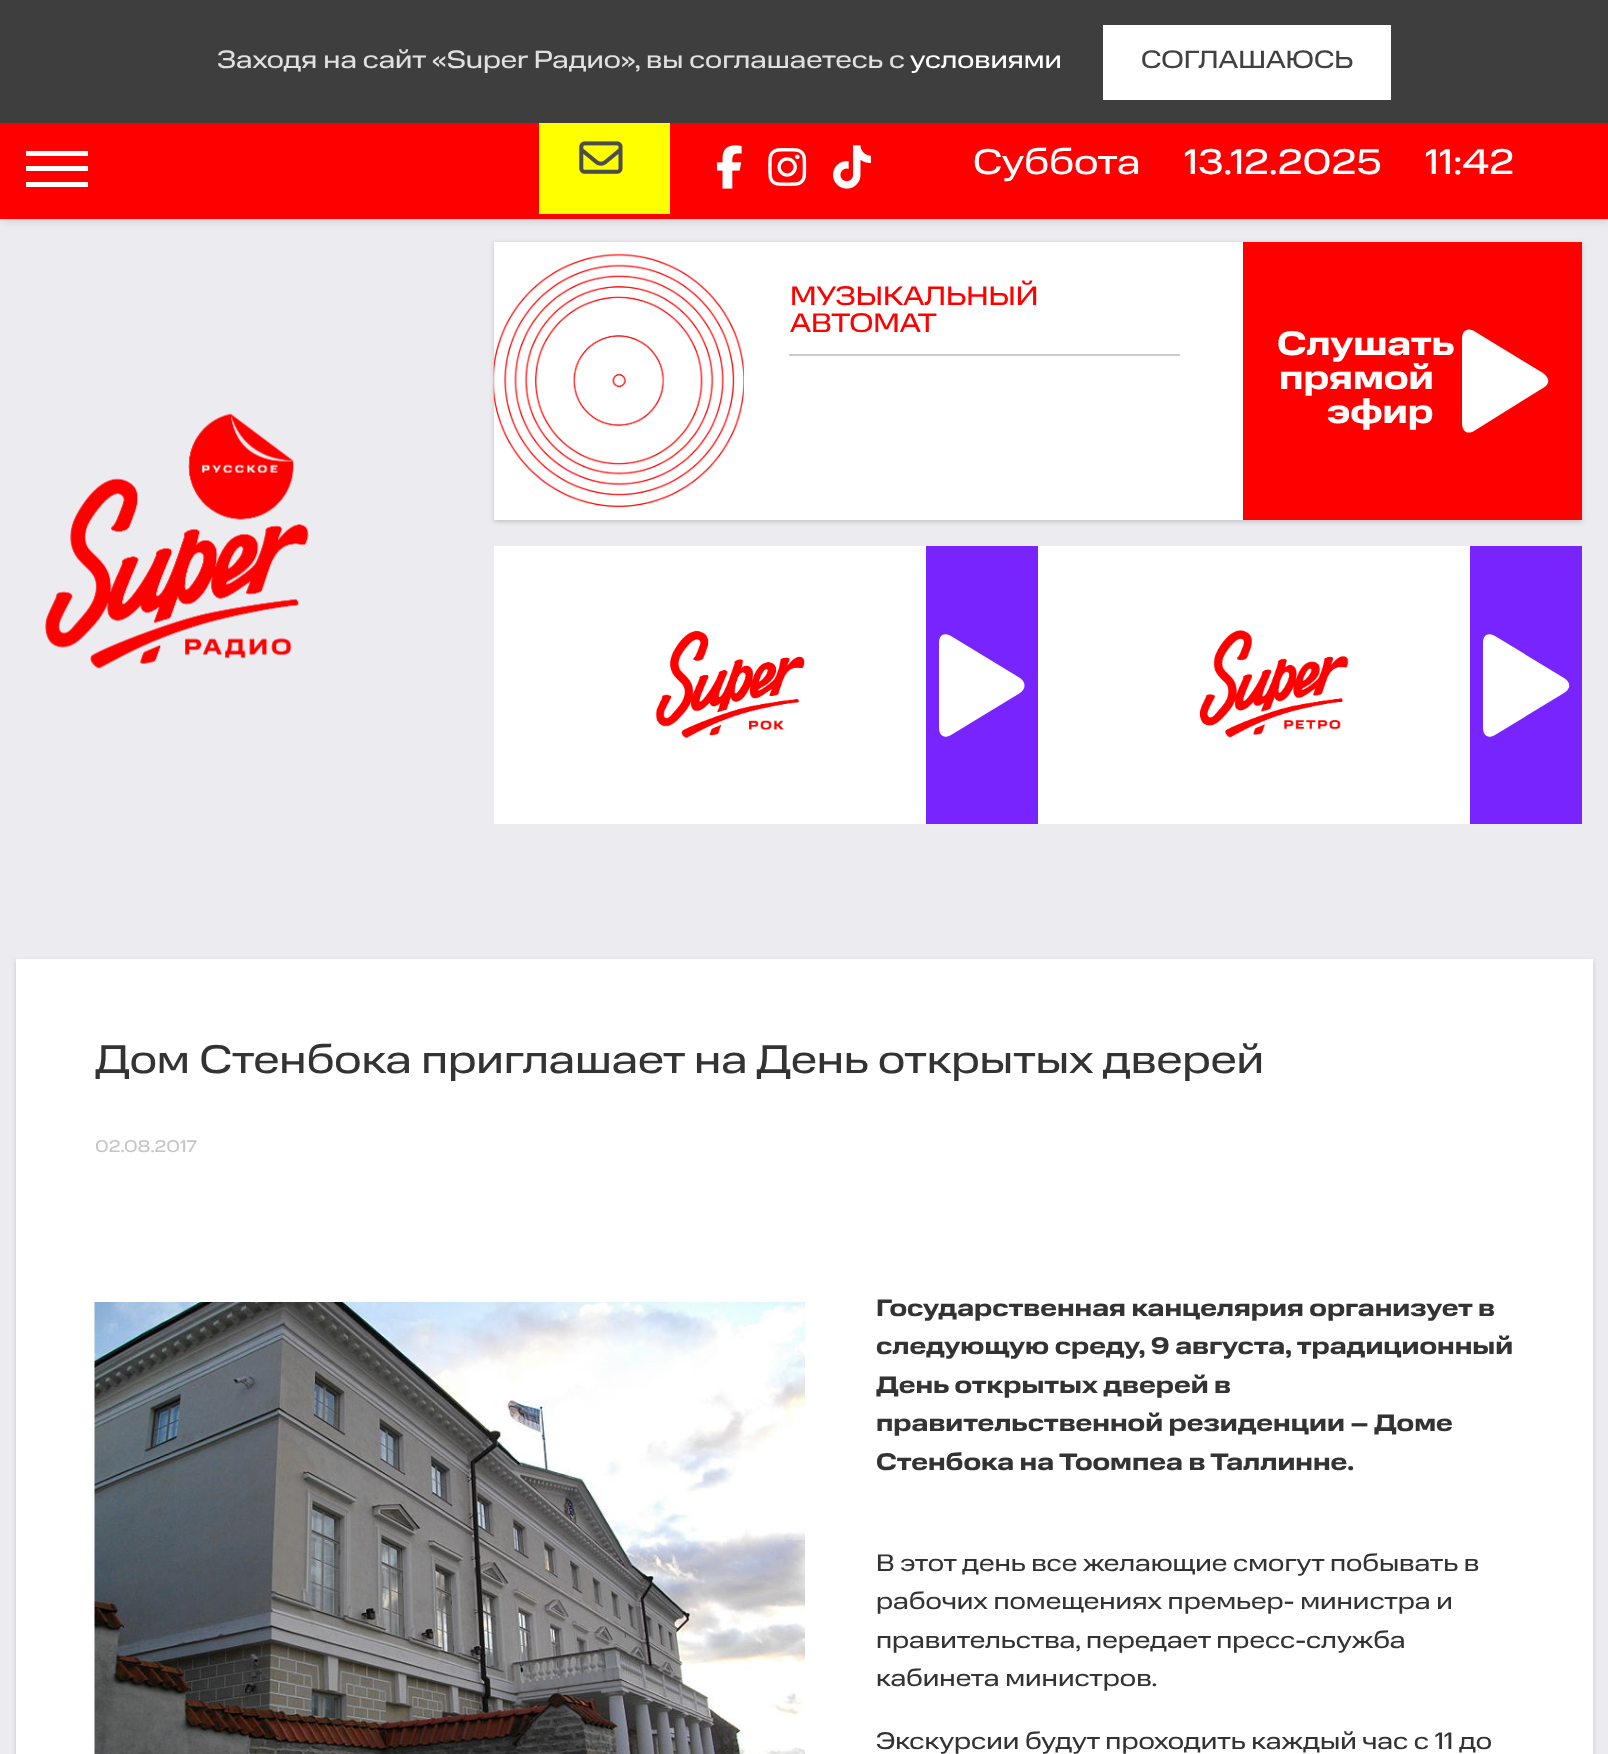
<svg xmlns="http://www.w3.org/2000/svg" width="1608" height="1754">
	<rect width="100%" height="100%" fill="#EBEBF0" />
	<rect x="2" y="123" width="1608" height="96" fill="#000000" fill-opacity="0.2" filter="blur(5px)" />
	<rect x="0" y="0" width="1608" height="123" fill="#3E3E3E" />
	<text x="217" y="68" font-family="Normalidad" font-size="25.2" fill="#E0E0E0">Заходя на сайт «Super Радио», вы соглашаетесь с</text>
	<text x="910" y="68" font-family="Normalidad" font-size="25.2" fill="#FFFFFF">условиями</text>
	<rect x="1103" y="25" width="288" height="75" fill="#FFFFFF" />
	<text x="1141" y="68" font-family="Normalidad" font-size="25.2" fill="#414141">СОГЛАШАЮСЬ</text>
	<rect x="0" y="123" width="1608" height="96" fill="#FF0000" />
	<rect x="26" y="151" width="62" height="5" fill="#FFFFFF" />
	<rect x="26" y="166" width="62" height="5" fill="#FFFFFF" />
	<rect x="26" y="182" width="62" height="5" fill="#FFFFFF" />
	<rect x="539" y="123" width="131" height="91" fill="#FFFF00" />
	<image x="579" y="141" width="44" height="33" href="assets/img1.png" />
	<image x="716" y="145" width="26" height="44" href="assets/img2.png" />
	<image x="768" y="148" width="39" height="38" href="assets/img3.png" />
	<image x="833" y="145" width="38" height="44" href="assets/img4.png" />
	<g font-family="Normalidad" font-size="36" fill="#FFFFFF">
		<text x="973" y="174">Суббота</text>
		<text x="1184" y="174">13.12.2025</text>
		<text x="1425" y="174">11:42</text>
	</g>
	<rect x="494" y="243" width="1088" height="279" fill="#323232" fill-opacity="0.2" filter="blur(2px)" />
	<rect x="494" y="242" width="749" height="278" fill="#FFFFFF" />
	<image x="493" y="253" width="251" height="255" href="assets/img5.png" />
	<rect x="789" y="354" width="391" height="2" fill="#CCCCCC" />
	<g font-family="Normalidad" font-size="27" fill="#FF0000">
		<text x="790" y="305">МУЗЫКАЛЬНЫЙ</text>
		<text x="790" y="332">АВТОМАТ</text>
	</g>
	<rect x="1243" y="242" width="339" height="278" fill="#FF0000" />
	<g font-family="Normalidad" font-size="34" font-weight="700" fill="#FFFFFF">
		<text x="1277" y="355">Слушать</text>
		<text x="1279" y="389">прямой</text>
		<text x="1327" y="423">эфир</text>
	</g>
	<path d="M1474 431C1467 435 1462 431 1462 423V339C1462 331 1467 327 1474 331L1543 373C1550 378 1550 384 1543 388Z" fill="#FFFFFF" fill-rule="evenodd" />
	<rect x="494" y="546" width="432" height="278" fill="#FFFFFF" />
	<image x="655" y="630" width="150" height="108" href="assets/img6.png" />
	<rect x="926" y="546" width="112" height="278" fill="#7824FF" />
	<path d="M951 735C944 739 939 736 939 727V643C939 635 944 632 951 636L1020 678C1026 682 1026 689 1020 693Z" fill="#FFFFFF" fill-rule="evenodd" />
	<rect x="1038" y="546" width="432" height="278" fill="#FFFFFF" />
	<image x="1199" y="630" width="150" height="108" href="assets/img7.png" />
	<rect x="1470" y="546" width="112" height="278" fill="#7824FF" />
	<path d="M1495 735C1488 739 1483 736 1483 727V643C1483 635 1488 632 1495 636L1564 678C1571 682 1571 689 1564 693Z" fill="#FFFFFF" fill-rule="evenodd" />
	<image x="45" y="413" width="264" height="256" href="assets/img8.png" />
	<rect x="16" y="961" width="1577" height="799" fill="#323232" fill-opacity="0.2" filter="blur(2px)" />
	<rect x="16" y="959" width="1577" height="795" fill="#FFFFFF" />
	<text x="95" y="1073" font-family="Normalidad" font-size="40.15" fill="#333333">Дом Стенбока приглашает на День открытых дверей</text>
	<text x="95" y="1152" font-family="Normalidad" font-size="17" fill="#C5C5C5">02.08.2017</text>
	<image x="94" y="1302" width="711" height="452" href="assets/img9.png" />
	<g font-family="Normalidad" font-size="24.1" font-weight="700" fill="#333333">
		<text x="876" y="1316">Государственная канцелярия организует в</text>
		<text x="876" y="1354">следующую среду, 9 августа, традиционный</text>
		<text x="876" y="1393">День открытых дверей в</text>
		<text x="876" y="1431">правительственной резиденции – Доме</text>
		<text x="876" y="1470">Стенбока на Тоомпеа в Таллинне.</text>
	</g>
	<g font-family="Normalidad" font-size="24.1" fill="#333333">
		<text x="876" y="1571">В этот день все желающие смогут побывать в</text>
		<text x="876" y="1609">рабочих помещениях премьер- министра и</text>
		<text x="876" y="1648">правительства, передает пресс-служба</text>
		<text x="876" y="1686">кабинета министров.</text>
		<text x="876" y="1749">Экскурсии будут проходить каждый час с 11 до</text>
	</g>
</svg>
